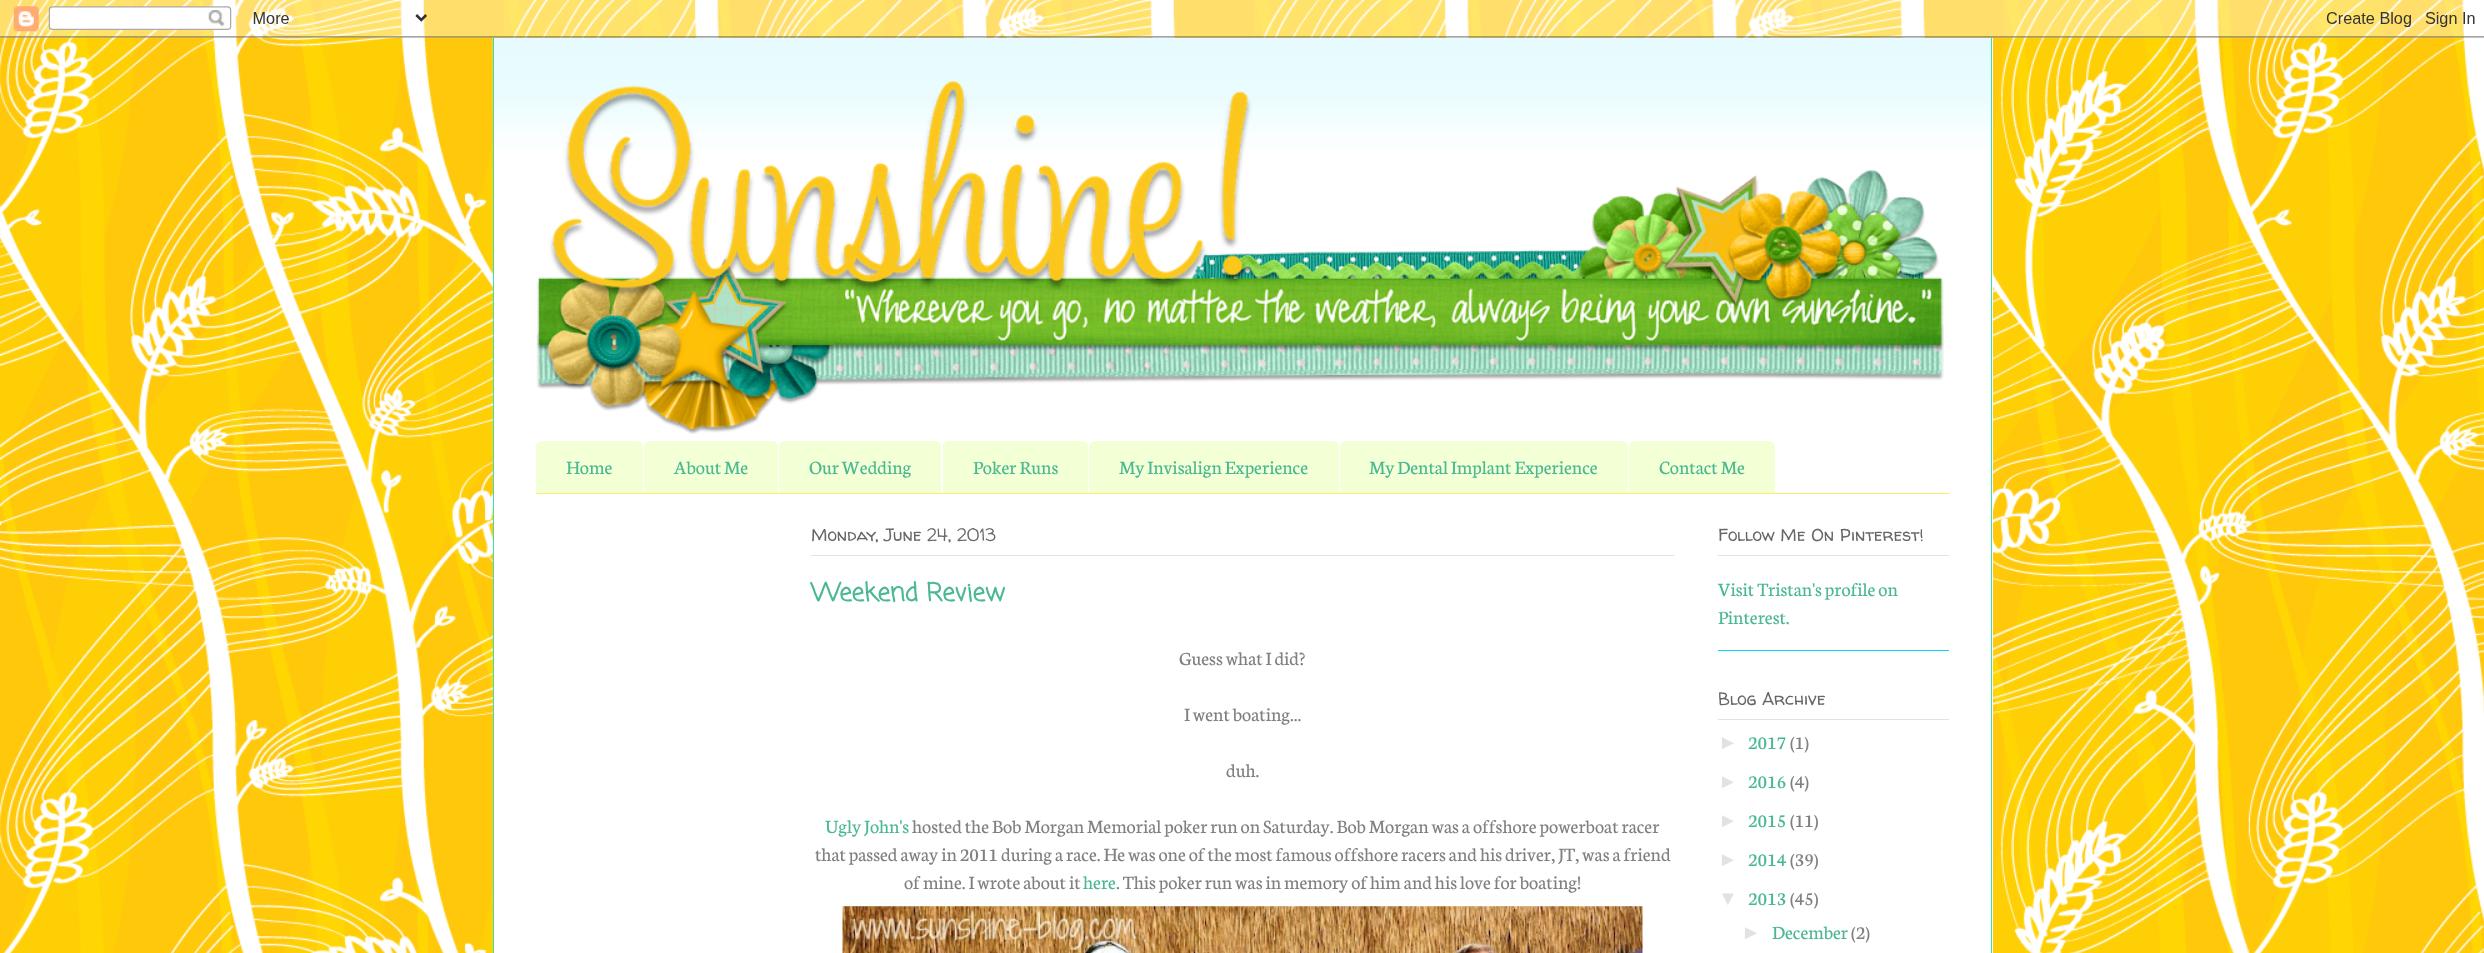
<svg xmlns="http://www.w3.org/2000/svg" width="2484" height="953">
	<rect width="100%" height="100%" fill="#FFFFFF" />
	<image x="0" y="0" width="2484" height="953" href="assets/img1.png" />
	<rect x="494" y="38" width="1499" height="915" fill="#FFFFFF" />
	<image x="492" y="37" width="1501" height="112" href="assets/img3.png" />
	<image x="0" y="0" width="2484" height="38" href="assets/img2.png" />
	<rect x="1991" y="38" width="1" height="915" fill="#37DFB7" />
	<rect x="493" y="38" width="1" height="915" fill="#37DFB7" />
	<image x="536" y="81" width="1408" height="353" href="assets/img4.png" />
	<rect x="536" y="493" width="1413" height="1" fill="#FBED6A" />
	<path d="M542 441H637C640.5 441 643 443.5 643 447V493H536V447C536 443.5 538.5 441 542 441Z" fill="#F3FFD4" />
	<text x="566" y="474" font-family="Neuton" font-size="20" fill="#4BB893">Home</text>
	<path d="M650 441H772C775.5 441 778 443.5 778 447V493H644V447C644 443.5 646.5 441 650 441Z" fill="#F3FFD4" />
	<text x="674" y="474" font-family="Neuton" font-size="20" fill="#4BB893">About Me</text>
	<path d="M785 441H935C938.5 441 941 443.5 941 447V493H779V447C779 443.5 781.5 441 785 441Z" fill="#F3FFD4" />
	<text x="809" y="474" font-family="Neuton" font-size="20" fill="#4BB893">Our Wedding</text>
	<path d="M949 441H1082C1085.5 441 1088 443.5 1088 447V493H943V447C943 443.5 945.5 441 949 441Z" fill="#F3FFD4" />
	<text x="973" y="474" font-family="Neuton" font-size="20" fill="#4BB893">Poker Runs</text>
	<path d="M1095 441H1333C1336.5 441 1339 443.5 1339 447V493H1089V447C1089 443.5 1091.5 441 1095 441Z" fill="#F3FFD4" />
	<text x="1119" y="474" font-family="Neuton" font-size="20" fill="#4BB893">My Invisalign Experience</text>
	<path d="M1346 441H1622C1625.5 441 1628 443.5 1628 447V493H1340V447C1340 443.5 1342.5 441 1346 441Z" fill="#F3FFD4" />
	<text x="1369" y="474" font-family="Neuton" font-size="20" fill="#4BB893">My Dental Implant Experience</text>
	<path d="M1635 441H1769C1772.5 441 1775 443.5 1775 447V493H1629V447C1629 443.5 1631.5 441 1635 441Z" fill="#F3FFD4" />
	<text x="1659" y="474" font-family="Neuton" font-size="20" fill="#4BB893">Contact Me</text>
	<rect x="811" y="555" width="863" height="1" fill="#E2E2E2" />
	<text x="811" y="541" font-family="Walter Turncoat" font-size="17.5" fill="#666666">Monday, June 24, 2013</text>
	<text x="811" y="601" font-family="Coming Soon" font-size="25" font-weight="700" fill="#4BB893">Weekend Review</text>
	<g font-family="Neuton" font-size="20" fill="#808080">
		<text x="1179" y="665">Guess what I did?</text>
		<text x="1184" y="721">I went boating...</text>
		<text x="1226" y="777">duh.</text>
	</g>
	<text x="825" y="833" font-family="Neuton" font-size="20" fill="#4BB893">Ugly John's</text>
	<g font-family="Neuton" font-size="20" fill="#808080">
		<text x="912" y="833">hosted the Bob Morgan Memorial poker run on Saturday. Bob Morgan was a offshore powerboat racer</text>
		<text x="815" y="861">that passed away in 2011 during a race. He was one of the most famous offshore racers and his driver, JT, was a friend</text>
		<text x="904" y="889">of mine. I wrote about it</text>
	</g>
	<text x="1083" y="889" font-family="Neuton" font-size="20" fill="#4BB893">here</text>
	<text x="1116" y="889" font-family="Neuton" font-size="20" fill="#808080">. This poker run was in memory of him and his love for boating!</text>
	<image x="842" y="906" width="801" height="47" href="assets/img5.png" />
	<rect x="1718" y="650" width="231" height="1" fill="#06D2FC" />
	<rect x="1718" y="555" width="231" height="1" fill="#E2E2E2" />
	<text x="1718" y="541" font-family="Walter Turncoat" font-size="17.5" fill="#666666">Follow Me On Pinterest!</text>
	<g font-family="Neuton" font-size="20" fill="#4BB893">
		<text x="1718" y="596">Visit Tristan's profile on</text>
		<text x="1718" y="624">Pinterest.</text>
	</g>
	<rect x="1718" y="719" width="231" height="1" fill="#E2E2E2" />
	<text x="1718" y="705" font-family="Walter Turncoat" font-size="17.5" fill="#666666">Blog Archive</text>
	<text x="1718" y="749" font-family="Liberation Sans" font-size="20" fill="#E2E2E2">►</text>
	<text x="1748" y="749" font-family="Neuton" font-size="20" fill="#4BB893">2017</text>
	<text x="1790" y="749" font-family="Neuton" font-size="20" fill="#808080">(1)</text>
	<text x="1718" y="788" font-family="Liberation Sans" font-size="20" fill="#E2E2E2">►</text>
	<text x="1748" y="788" font-family="Neuton" font-size="20" fill="#4BB893">2016</text>
	<text x="1790" y="788" font-family="Neuton" font-size="20" fill="#808080">(4)</text>
	<text x="1718" y="827" font-family="Liberation Sans" font-size="20" fill="#E2E2E2">►</text>
	<text x="1748" y="827" font-family="Neuton" font-size="20" fill="#4BB893">2015</text>
	<text x="1790" y="827" font-family="Neuton" font-size="20" fill="#808080">(11)</text>
	<text x="1718" y="866" font-family="Liberation Sans" font-size="20" fill="#E2E2E2">►</text>
	<text x="1748" y="866" font-family="Neuton" font-size="20" fill="#4BB893">2014</text>
	<text x="1790" y="866" font-family="Neuton" font-size="20" fill="#808080">(39)</text>
	<text x="1718" y="905" font-family="Liberation Sans" font-size="20" fill="#E2E2E2">▼</text>
	<text x="1748" y="905" font-family="Neuton" font-size="20" fill="#4BB893">2013</text>
	<text x="1790" y="905" font-family="Neuton" font-size="20" fill="#808080">(45)</text>
	<text x="1741" y="939" font-family="Liberation Sans" font-size="20" fill="#E2E2E2">►</text>
	<text x="1772" y="939" font-family="Neuton" font-size="20" fill="#4BB893">December</text>
	<text x="1851" y="939" font-family="Neuton" font-size="20" fill="#808080">(2)</text>
</svg>
